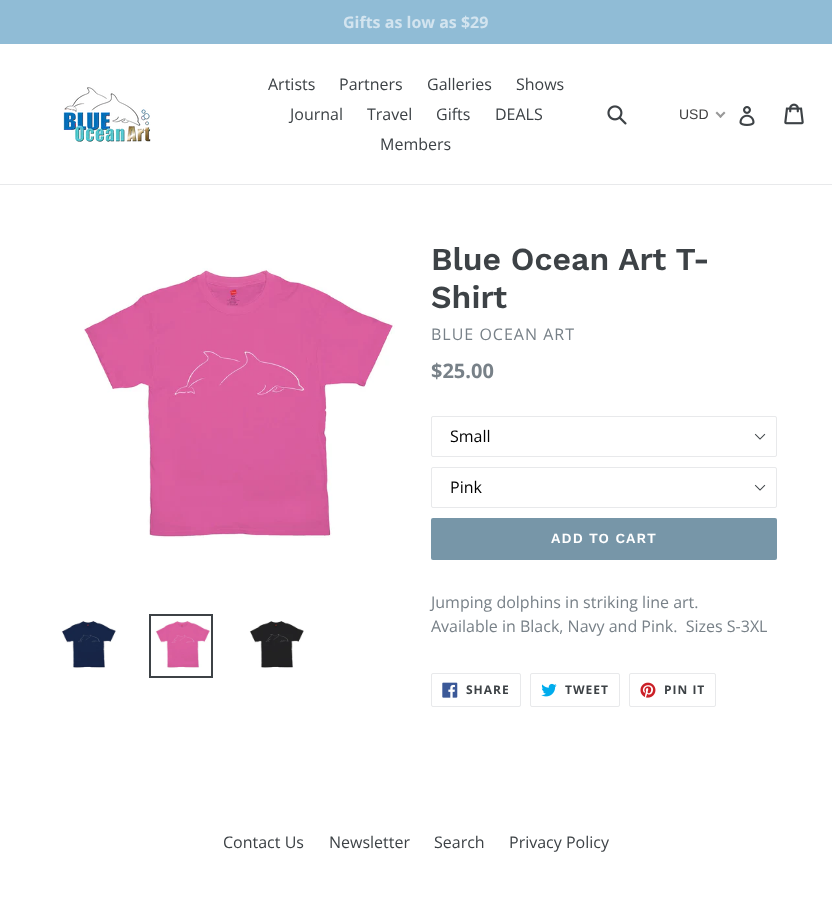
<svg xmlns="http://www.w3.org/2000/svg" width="832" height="902">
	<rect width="100%" height="100%" fill="#FFFFFF" />
	<rect x="0" y="0" width="832" height="44" fill="#90BCD6" />
	<text x="343" y="28" font-family="Open Sans" font-size="16" font-weight="700" fill="#D3E4EF">Gifts as low as $29</text>
	<rect x="0" y="184" width="832" height="1" fill="#E8E9EB" />
	<image x="63" y="87" width="88" height="55" href="assets/img1.png" />
	<g font-family="Open Sans" font-size="16" fill="#3D4246">
		<text x="268" y="90">Artists</text>
		<text x="339" y="90">Partners</text>
		<text x="427" y="90">Galleries</text>
		<text x="516" y="90">Shows</text>
		<text x="290" y="120">Journal</text>
		<text x="367" y="120">Travel</text>
		<text x="436" y="120">Gifts</text>
		<text x="495" y="120">DEALS</text>
		<text x="380" y="150">Members</text>
	</g>
	<image x="607" y="105" width="20" height="20" href="assets/img2.png" />
	<text x="679" y="119" font-family="Liberation Sans" font-size="14" fill="#403F3F">USD</text>
	<path d="M724 111.5L725.5 113L720.5 118L719 116.5Z" fill="#999999" />
	<path d="M717 111.5L722 116.5L720.5 118L715.5 113Z" fill="#999999" />
	<image x="739" y="106" width="16" height="20" href="assets/img3.png" />
	<image x="784" y="103" width="20" height="22" href="assets/img4.png" />
	<image x="83" y="268" width="312" height="270" href="assets/img5.png" />
	<image x="61" y="620" width="55" height="48" href="assets/img6.png" />
	<rect x="150" y="615" width="62" height="62" fill="none" stroke="#3D4246" stroke-width="2" />
	<image x="155" y="621" width="55" height="47" href="assets/img7.png" />
	<image x="249" y="621" width="55" height="47" href="assets/img8.png" />
	<g font-family="Work Sans" font-size="32" font-weight="600" fill="#3D4246">
		<text x="431" y="270">Blue Ocean Art T-</text>
		<text x="431" y="308">Shirt</text>
	</g>
	<text x="431" y="340" font-family="Open Sans" font-size="16" letter-spacing="1" fill="#788188">BLUE OCEAN ART</text>
	<text x="431" y="378" font-family="Open Sans" font-size="20" font-weight="700" fill="#788188">$25.00</text>
	<image x="754" y="433" width="12" height="7" href="assets/img9.png" />
	<rect x="431.5" y="416.5" width="345" height="40" rx="1.5" fill="none" stroke="#E8E9EB" />
	<text x="450" y="442" font-family="Open Sans" font-size="16" fill="#000000">Small</text>
	<image x="754" y="484" width="12" height="7" href="assets/img9.png" />
	<rect x="431.5" y="467.5" width="345" height="40" rx="1.5" fill="none" stroke="#E8E9EB" />
	<text x="450" y="493" font-family="Open Sans" font-size="16" fill="#000000">Pink</text>
	<rect x="431" y="518" width="346" height="42" rx="2" fill="#7796A8" />
	<text x="551" y="543" font-family="Work Sans" font-size="14" font-weight="600" letter-spacing="1.1" fill="#FFFFFF">ADD TO CART</text>
	<g font-family="Open Sans" font-size="16" fill="#788188">
		<text x="431" y="608">Jumping dolphins in striking line art.</text>
		<text x="431" y="632" xml:space="preserve">Available in Black, Navy and Pink.  Sizes S-3XL</text>
	</g>
	<rect x="431.5" y="673.5" width="89" height="33" rx="1.5" fill="none" stroke="#E8E9EB" />
	<image x="442" y="682" width="16" height="16" href="assets/img10.png" />
	<text x="466" y="694" font-family="Open Sans" font-size="12" font-weight="700" letter-spacing="1" fill="#3D4246">SHARE</text>
	<rect x="530.5" y="673.5" width="89" height="33" rx="1.5" fill="none" stroke="#E8E9EB" />
	<image x="541" y="683" width="16" height="14" href="assets/img11.png" />
	<text x="565" y="694" font-family="Open Sans" font-size="12" font-weight="700" letter-spacing="1" fill="#3D4246">TWEET</text>
	<rect x="629.5" y="673.5" width="86" height="33" rx="1.5" fill="none" stroke="#E8E9EB" />
	<image x="640" y="682" width="16" height="16" href="assets/img12.png" />
	<text x="664" y="694" font-family="Open Sans" font-size="12" font-weight="700" letter-spacing="1" fill="#3D4246">PIN IT</text>
	<g font-family="Open Sans" font-size="16" fill="#3D4246">
		<text x="223" y="848">Contact Us</text>
		<text x="329" y="848">Newsletter</text>
		<text x="434" y="848">Search</text>
		<text x="509" y="848">Privacy Policy</text>
	</g>
</svg>
